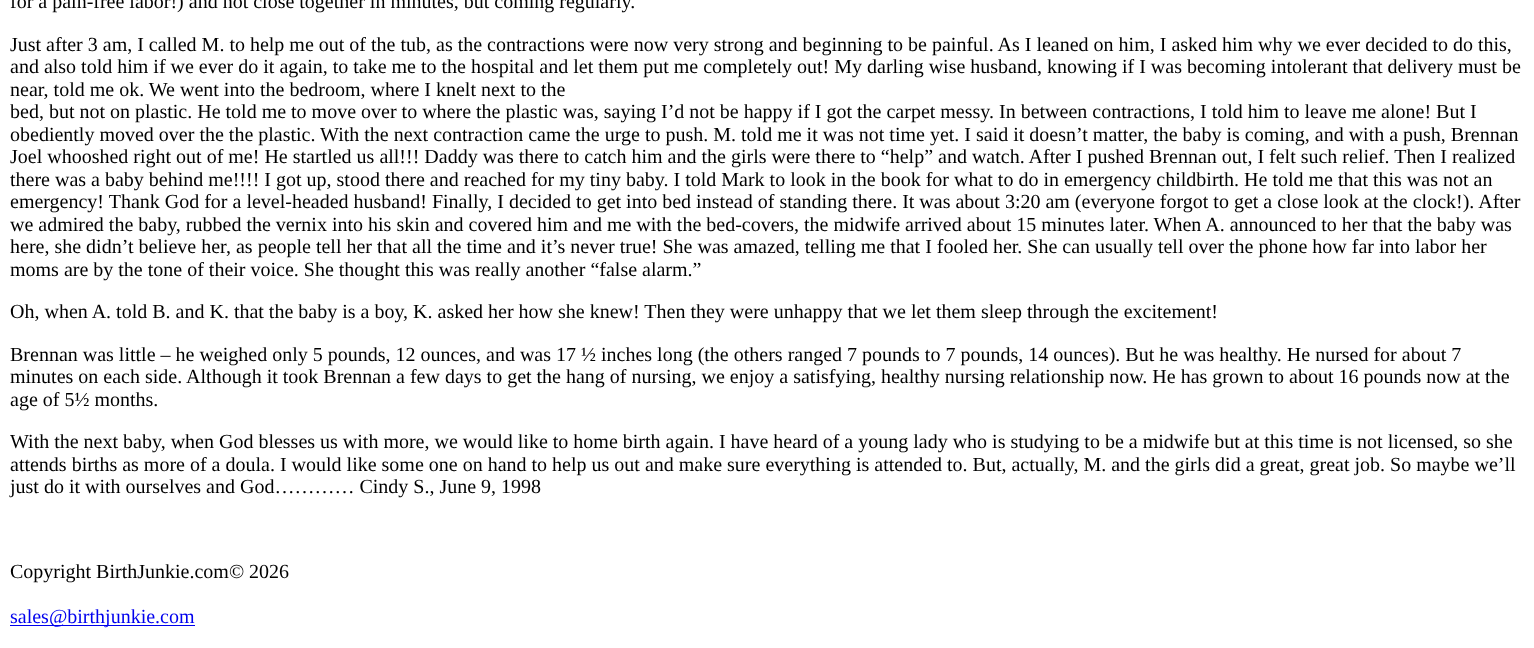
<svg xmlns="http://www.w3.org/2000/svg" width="1534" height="648">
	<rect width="100%" height="100%" fill="#FFFFFF" />
	<g font-family="Liberation Serif" font-size="20" fill="#000000">
		<text x="10" y="8">for a pain-free labor!) and not close together in minutes, but coming regularly.</text>
		<text x="10" y="51">Just after 3 am, I called M. to help me out of the tub, as the contractions were now very strong and beginning to be painful. As I leaned on him, I asked him why we ever decided to do this,</text>
		<text x="10" y="73">and also told him if we ever do it again, to take me to the hospital and let them put me completely out! My darling wise husband, knowing if I was becoming intolerant that delivery must be</text>
		<text x="10" y="96">near, told me ok. We went into the bedroom, where I knelt next to the</text>
		<text x="10" y="118">bed, but not on plastic. He told me to move over to where the plastic was, saying I’d not be happy if I got the carpet messy. In between contractions, I told him to leave me alone! But I</text>
		<text x="10" y="141">obediently moved over the the plastic. With the next contraction came the urge to push. M. told me it was not time yet. I said it doesn’t matter, the baby is coming, and with a push, Brennan</text>
		<text x="10" y="163">Joel whooshed right out of me! He startled us all!!! Daddy was there to catch him and the girls were there to “help” and watch. After I pushed Brennan out, I felt such relief. Then I realized</text>
		<text x="10" y="186">there was a baby behind me!!!! I got up, stood there and reached for my tiny baby. I told Mark to look in the book for what to do in emergency childbirth. He told me that this was not an</text>
		<text x="10" y="208">emergency! Thank God for a level-headed husband! Finally, I decided to get into bed instead of standing there. It was about 3:20 am (everyone forgot to get a close look at the clock!). After</text>
		<text x="10" y="231">we admired the baby, rubbed the vernix into his skin and covered him and me with the bed-covers, the midwife arrived about 15 minutes later. When A. announced to her that the baby was</text>
		<text x="10" y="253">here, she didn’t believe her, as people tell her that all the time and it’s never true! She was amazed, telling me that I fooled her. She can usually tell over the phone how far into labor her</text>
		<text x="10" y="276">moms are by the tone of their voice. She thought this was really another “false alarm.”</text>
		<text x="10" y="318">Oh, when A. told B. and K. that the baby is a boy, K. asked her how she knew! Then they were unhappy that we let them sleep through the excitement!</text>
		<text x="10" y="361">Brennan was little – he weighed only 5 pounds, 12 ounces, and was 17 ½ inches long (the others ranged 7 pounds to 7 pounds, 14 ounces). But he was healthy. He nursed for about 7</text>
		<text x="10" y="383">minutes on each side. Although it took Brennan a few days to get the hang of nursing, we enjoy a satisfying, healthy nursing relationship now. He has grown to about 16 pounds now at the</text>
		<text x="10" y="406">age of 5½ months.</text>
		<text x="10" y="448">With the next baby, when God blesses us with more, we would like to home birth again. I have heard of a young lady who is studying to be a midwife but at this time is not licensed, so she</text>
		<text x="10" y="471">attends births as more of a doula. I would like some one on hand to help us out and make sure everything is attended to. But, actually, M. and the girls did a great, great job. So maybe we’ll</text>
		<text x="10" y="493">just do it with ourselves and God………… Cindy S., June 9, 1998</text>
		<text x="10" y="578">Copyright BirthJunkie.com© 2026</text>
	</g>
	<rect x="10" y="625" width="185" height="1" fill="#0000EE" />
	<text x="10" y="623" font-family="Liberation Serif" font-size="20" fill="#0000EE">sales@birthjunkie.com</text>
</svg>
